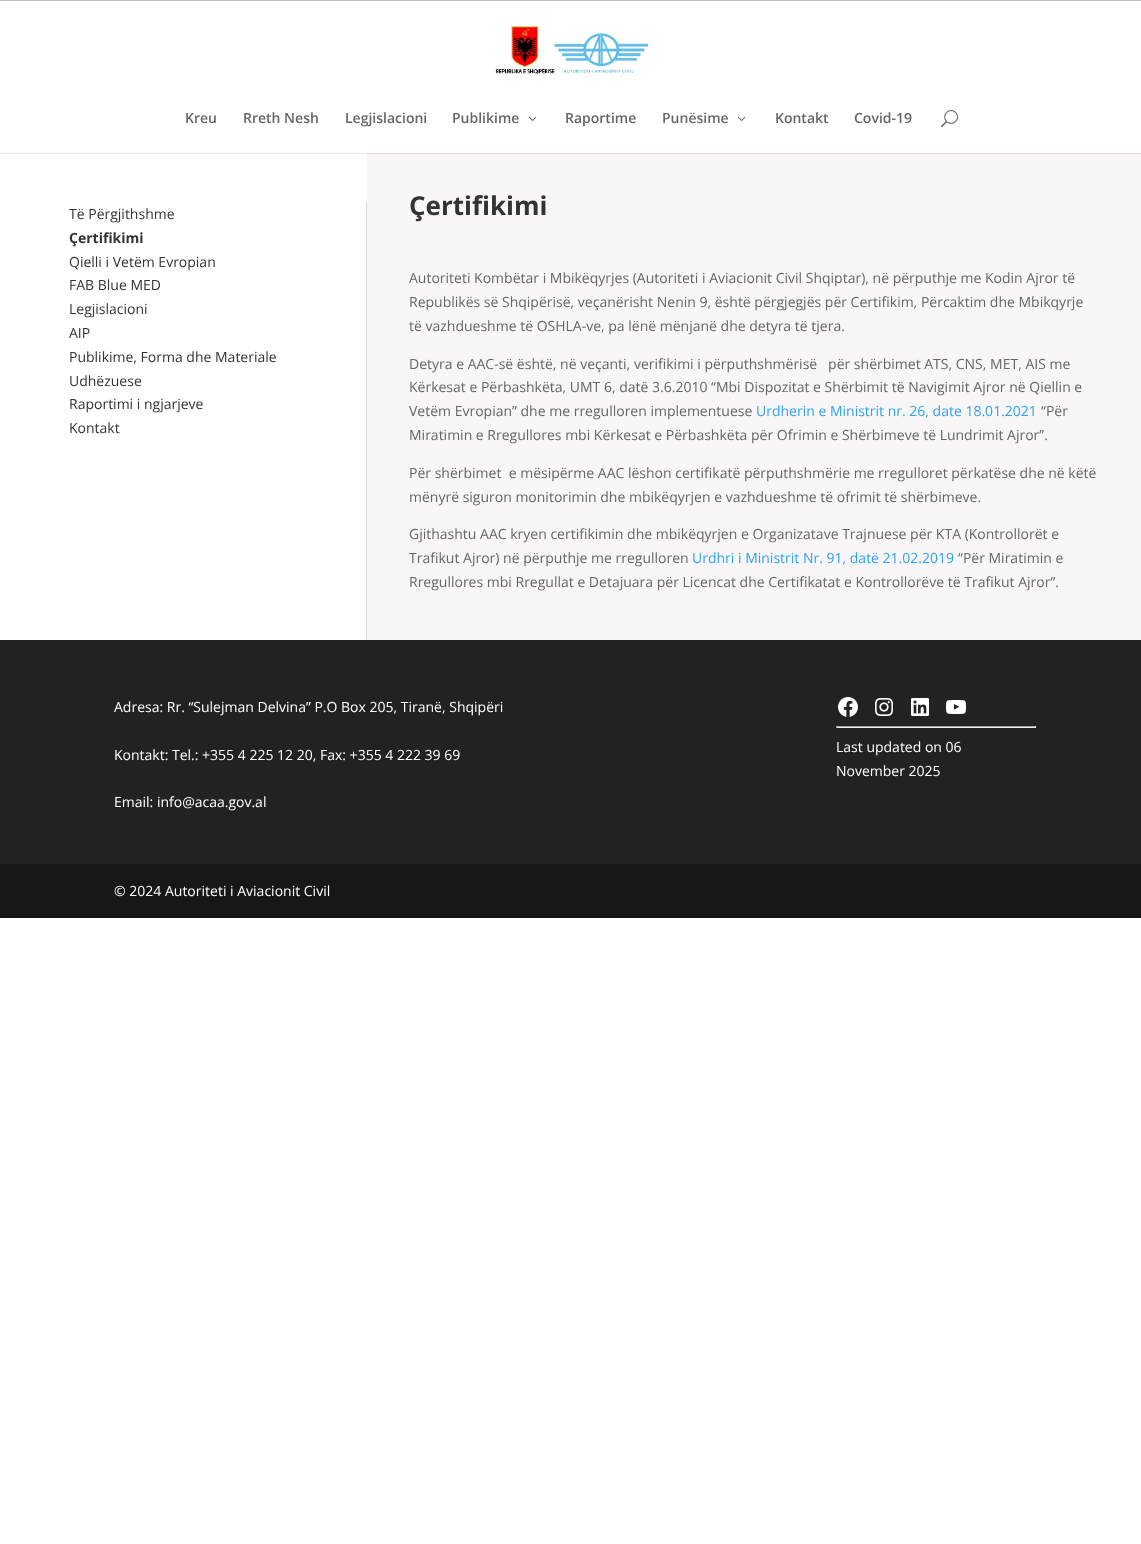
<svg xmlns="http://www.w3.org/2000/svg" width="1141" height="1544">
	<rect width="100%" height="100%" fill="#FFFFFF" />
	<rect x="0" y="153" width="367" height="1" fill="#E6E6E6" />
	<rect x="0" y="0" width="1141" height="1" fill="#BCBDC4" />
	<image x="495" y="26" width="153" height="48" href="assets/img1.png" />
	<g font-family="Open Sans" font-size="14" font-weight="600" fill="#666666">
		<text x="185" y="123">Kreu</text>
		<text x="243" y="123">Rreth Nesh</text>
		<text x="345" y="123">Legjislacioni</text>
		<text x="452" y="123">Publikime</text>
	</g>
	<image x="528" y="116" width="9" height="5" href="assets/img2.png" />
	<g font-family="Open Sans" font-size="14" font-weight="600" fill="#666666">
		<text x="565" y="123">Raportime</text>
		<text x="662" y="123">Punësime</text>
	</g>
	<image x="737" y="116" width="9" height="5" href="assets/img2.png" />
	<g font-family="Open Sans" font-size="14" font-weight="600" fill="#666666">
		<text x="775" y="123">Kontakt</text>
		<text x="854" y="123">Covid-19</text>
	</g>
	<image x="941" y="110" width="17" height="18" href="assets/img3.png" />
	<rect x="366" y="202" width="1" height="438" fill="#DDDDDD" />
	<text x="69" y="219" font-family="Open Sans" font-size="14" fill="#333333">Të Përgjithshme</text>
	<text x="69" y="243" font-family="Open Sans" font-size="14" font-weight="700" fill="#333333">Çertifikimi</text>
	<g font-family="Open Sans" font-size="14" fill="#333333">
		<text x="69" y="267">Qielli i Vetëm Evropian</text>
		<text x="69" y="290">FAB Blue MED</text>
		<text x="69" y="314">Legjislacioni</text>
		<text x="69" y="338">AIP</text>
		<text x="69" y="362">Publikime, Forma dhe Materiale</text>
		<text x="69" y="386">Udhëzuese</text>
		<text x="69" y="409">Raportimi i ngjarjeve</text>
		<text x="69" y="433">Kontakt</text>
	</g>
	<rect x="367" y="154" width="774" height="486" fill="#F8F6F7" />
	<rect x="367" y="153" width="774" height="1" fill="#DFDDDE" />
	<text x="409" y="215" font-family="Open Sans" font-size="26" font-weight="700" fill="#333333">Çertifikimi</text>
	<g font-family="Open Sans" font-size="14" fill="#666666">
		<text x="409" y="283">Autoriteti Kombëtar i Mbikëqyrjes (Autoriteti i Aviacionit Civil Shqiptar), në përputhje me Kodin Ajror të</text>
		<text x="409" y="307">Republikës së Shqipërisë, veçanërisht Nenin 9, është përgjegjës për Certifikim, Përcaktim dhe Mbikqyrje</text>
		<text x="409" y="331">të vazhdueshme të OSHLA-ve, pa lënë mënjanë dhe detyra të tjera.</text>
		<text x="409" y="369" xml:space="preserve">Detyra e AAC-së është, në veçanti, verifikimi i përputhshmërisë   për shërbimet ATS, CNS, MET, AIS me</text>
		<text x="409" y="392">Kërkesat e Përbashkëta, UMT 6, datë 3.6.2010 “Mbi Dispozitat e Shërbimit të Navigimit Ajror në Qiellin e</text>
		<text x="409" y="416">Vetëm Evropian” dhe me rregulloren implementuese</text>
	</g>
	<text x="756" y="416" font-family="Open Sans" font-size="14" fill="#2EA3F2">Urdherin e Ministrit nr. 26, date 18.01.2021</text>
	<g font-family="Open Sans" font-size="14" fill="#666666">
		<text x="1041" y="416">“Për</text>
		<text x="409" y="440">Miratimin e Rregullores mbi Kërkesat e Përbashkëta për Ofrimin e Shërbimeve të Lundrimit Ajror”.</text>
		<text x="409" y="478" xml:space="preserve">Për shërbimet  e mësipërme AAC lëshon certifikatë përputhshmërie me rregulloret përkatëse dhe në këtë</text>
		<text x="409" y="502">mënyrë siguron monitorimin dhe mbikëqyrjen e vazhdueshme të ofrimit të shërbimeve.</text>
		<text x="409" y="539">Gjithashtu AAC kryen certifikimin dhe mbikëqyrjen e Organizatave Trajnuese për KTA (Kontrollorët e</text>
		<text x="409" y="563">Trafikut Ajror) në përputhje me rregulloren</text>
	</g>
	<text x="692" y="563" font-family="Open Sans" font-size="14" fill="#2EA3F2">Urdhri i Ministrit Nr. 91, datë 21.02.2019</text>
	<g font-family="Open Sans" font-size="14" fill="#666666">
		<text x="958" y="563">“Për Miratimin e</text>
		<text x="409" y="587">Rregullores mbi Rregullat e Detajuara për Licencat dhe Certifikatat e Kontrollorëve të Trafikut Ajror”.</text>
	</g>
	<rect x="0" y="640" width="1141" height="224" fill="#222222" />
	<g font-family="Open Sans" font-size="14" fill="#FFFFFF">
		<text x="114" y="712">Adresa: Rr. “Sulejman Delvina” P.O Box 205, Tiranë, Shqipëri</text>
		<text x="114" y="760">Kontakt: Tel.: +355 4 225 12 20, Fax: +355 4 222 39 69</text>
		<text x="114" y="807">Email: info@acaa.gov.al</text>
	</g>
	<image x="838" y="697" width="20" height="20" href="assets/img4.png" />
	<image x="875" y="698" width="18" height="18" href="assets/img5.png" />
	<image x="911" y="698" width="18" height="18" href="assets/img6.png" />
	<image x="946" y="700" width="20" height="14" href="assets/img7.png" />
	<rect x="836" y="726" width="200" height="1" fill="#9F9F9F" />
	<rect x="1035" y="726" width="1" height="2" fill="#EEEEEE" />
	<rect x="836" y="727" width="200" height="1" fill="#EEEEEE" />
	<rect x="836" y="726" width="1" height="2" fill="#9F9F9F" />
	<g font-family="Open Sans" font-size="14" fill="#FFFFFF">
		<text x="836" y="752">Last updated on 06</text>
		<text x="836" y="776">November 2025</text>
	</g>
	<rect x="0" y="864" width="1141" height="54" fill="#171717" />
	<text x="114" y="896" font-family="Open Sans" font-size="14" fill="#FFFFFF">© 2024 Autoriteti i Aviacionit Civil</text>
</svg>
